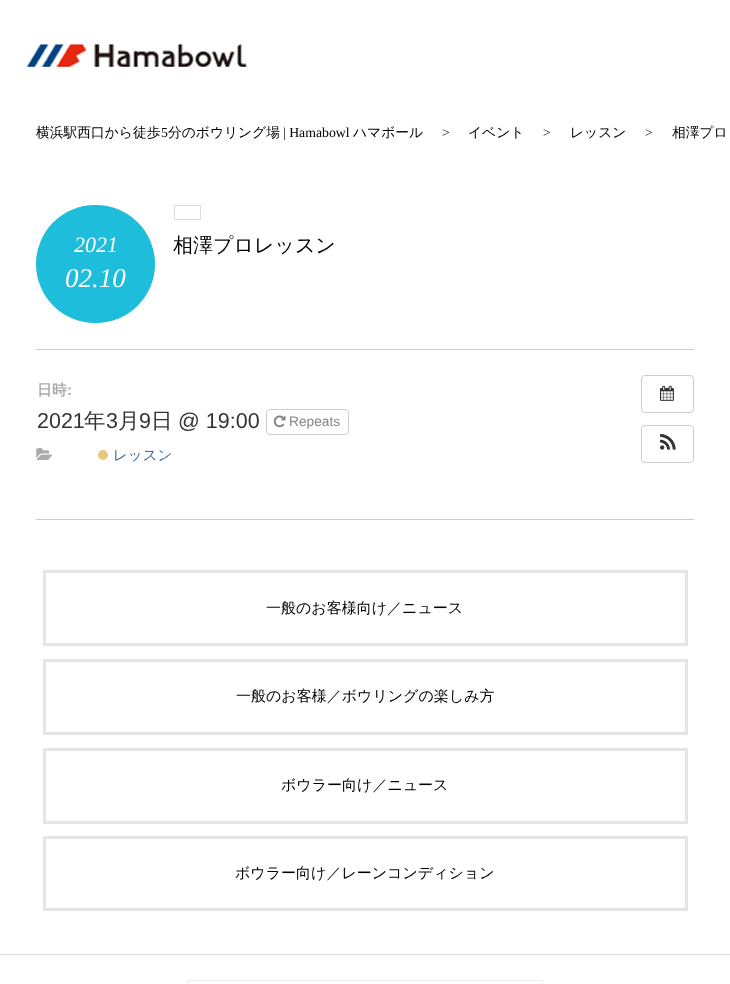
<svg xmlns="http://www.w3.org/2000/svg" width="730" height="984">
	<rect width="100%" height="100%" fill="#FFFFFF" />
	<image x="26" y="43" width="221" height="24" href="assets/img1.png" />
	<text x="36" y="137" font-family="WenQuanYi Zen Hei" font-size="13.75" font-weight="500" fill="#000000">横浜駅西口から徒歩</text>
	<text x="161" y="137" font-family="Liberation Serif" font-size="13.75" fill="#000000">5</text>
	<text x="168" y="137" font-family="WenQuanYi Zen Hei" font-size="13.75" font-weight="500" fill="#000000">分のボウリング場</text>
	<text x="283" y="137" font-family="Liberation Serif" font-size="13.75" fill="#000000">| Hamabowl</text>
	<text x="353" y="137" font-family="WenQuanYi Zen Hei" font-size="13.75" font-weight="500" fill="#000000">ハマボール</text>
	<text x="442" y="137" font-family="Liberation Serif" font-size="13.75" fill="#000000">&gt;</text>
	<text x="468" y="137" font-family="WenQuanYi Zen Hei" font-size="13.75" font-weight="500" fill="#000000">イベント</text>
	<text x="543" y="137" font-family="Liberation Serif" font-size="13.75" fill="#000000">&gt;</text>
	<text x="570" y="137" font-family="WenQuanYi Zen Hei" font-size="13.75" font-weight="500" fill="#000000">レッスン</text>
	<text x="645" y="137" font-family="Liberation Serif" font-size="13.75" fill="#000000">&gt;</text>
	<text x="672" y="137" font-family="WenQuanYi Zen Hei" font-size="13.75" font-weight="500" fill="#000000">相澤プロ</text>
	<rect x="36" y="349" width="658" height="1" fill="#CCCCCC" />
	<rect x="36" y="205" width="119" height="118" rx="59" fill="#1EBDDC" />
	<text x="74" y="252" font-family="Liberation Serif" font-size="22" font-style="italic" fill="#FFFFFF">2021</text>
	<text x="65" y="287" font-family="Liberation Serif" font-size="27" font-style="italic" fill="#FFFFFF">02.10</text>
	<rect x="174.5" y="205.5" width="26" height="14" fill="none" stroke="#DCDCDC" />
	<text x="173" y="252" font-family="WenQuanYi Zen Hei" font-size="20" font-weight="500" fill="#000000">相澤プロレッスン</text>
	<text x="37" y="395" font-family="WenQuanYi Zen Hei" font-size="15" font-weight="700" fill="#AAAAAA">日時</text>
	<text x="67" y="395" font-family="Liberation Sans" font-size="15" font-weight="700" fill="#AAAAAA">:</text>
	<text x="37" y="428" font-family="Liberation Sans" font-size="21.5" fill="#333333">2021</text>
	<text x="84" y="428" font-family="WenQuanYi Zen Hei" font-size="21.5" font-weight="500" fill="#333333">年</text>
	<text x="106" y="428" font-family="Liberation Sans" font-size="21.5" fill="#333333">3</text>
	<text x="118" y="428" font-family="WenQuanYi Zen Hei" font-size="21.5" font-weight="500" fill="#333333">月</text>
	<text x="139" y="428" font-family="Liberation Sans" font-size="21.5" fill="#333333">9</text>
	<text x="151" y="428" font-family="WenQuanYi Zen Hei" font-size="21.5" font-weight="500" fill="#333333">日</text>
	<text x="178" y="428" font-family="Liberation Sans" font-size="21.5" fill="#333333">@ 19:00</text>
	<rect x="266.5" y="409.5" width="82" height="25" rx="3.5" fill="none" stroke="#CCCCCC" />
	<image x="273" y="415" width="13" height="13" href="assets/img2.png" />
	<text x="289" y="426" font-family="Liberation Sans" font-size="13.75" fill="#858585">Repeats</text>
	<image x="36" y="448" width="16" height="12" href="assets/img3.png" />
	<circle cx="103" cy="455" r="5" fill="#EAC87B" />
	<text x="113" y="460" font-family="WenQuanYi Zen Hei" font-size="14.5" font-weight="500" fill="#3D6B99">レッスン</text>
	<rect x="641.5" y="375.5" width="52" height="37" rx="3.5" fill="none" stroke="#CCCCCC" />
	<image x="660" y="385" width="14" height="16" href="assets/img4.png" />
	<rect x="641.5" y="425.5" width="52" height="37" rx="3.5" fill="none" stroke="#CCCCCC" />
	<image x="660" y="434" width="16" height="16" href="assets/img5.png" />
	<rect x="36" y="519" width="658" height="1" fill="#CCCCCC" />
	<rect x="44.5" y="571.5" width="642" height="73" fill="none" stroke="#E5E5E5" stroke-width="3" />
	<text x="266" y="613" font-family="WenQuanYi Zen Hei" font-size="15" font-weight="500" fill="#000000">一般のお客様向け／ニュース</text>
	<rect x="44.5" y="660.5" width="642" height="73" fill="none" stroke="#E5E5E5" stroke-width="3" />
	<text x="236" y="701" font-family="WenQuanYi Zen Hei" font-size="15" font-weight="500" fill="#000000">一般のお客様／ボウリングの楽しみ方</text>
	<rect x="44.5" y="749.5" width="642" height="73" fill="none" stroke="#E5E5E5" stroke-width="3" />
	<text x="281" y="790" font-family="WenQuanYi Zen Hei" font-size="15" font-weight="500" fill="#000000">ボウラー向け／ニュース</text>
	<rect x="44.5" y="837.5" width="642" height="72" fill="none" stroke="#E5E5E5" stroke-width="3" />
	<text x="235" y="878" font-family="WenQuanYi Zen Hei" font-size="15" font-weight="500" fill="#000000">ボウラー向け／レーンコンディション</text>
	<rect x="0" y="954" width="730" height="1" fill="#DDDDDD" />
	<image x="187" y="980" width="355" height="4" href="assets/img6.png" />
	<rect x="188.5" y="980.5" width="354" height="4" fill="none" stroke="#EEEEEE" />
</svg>
